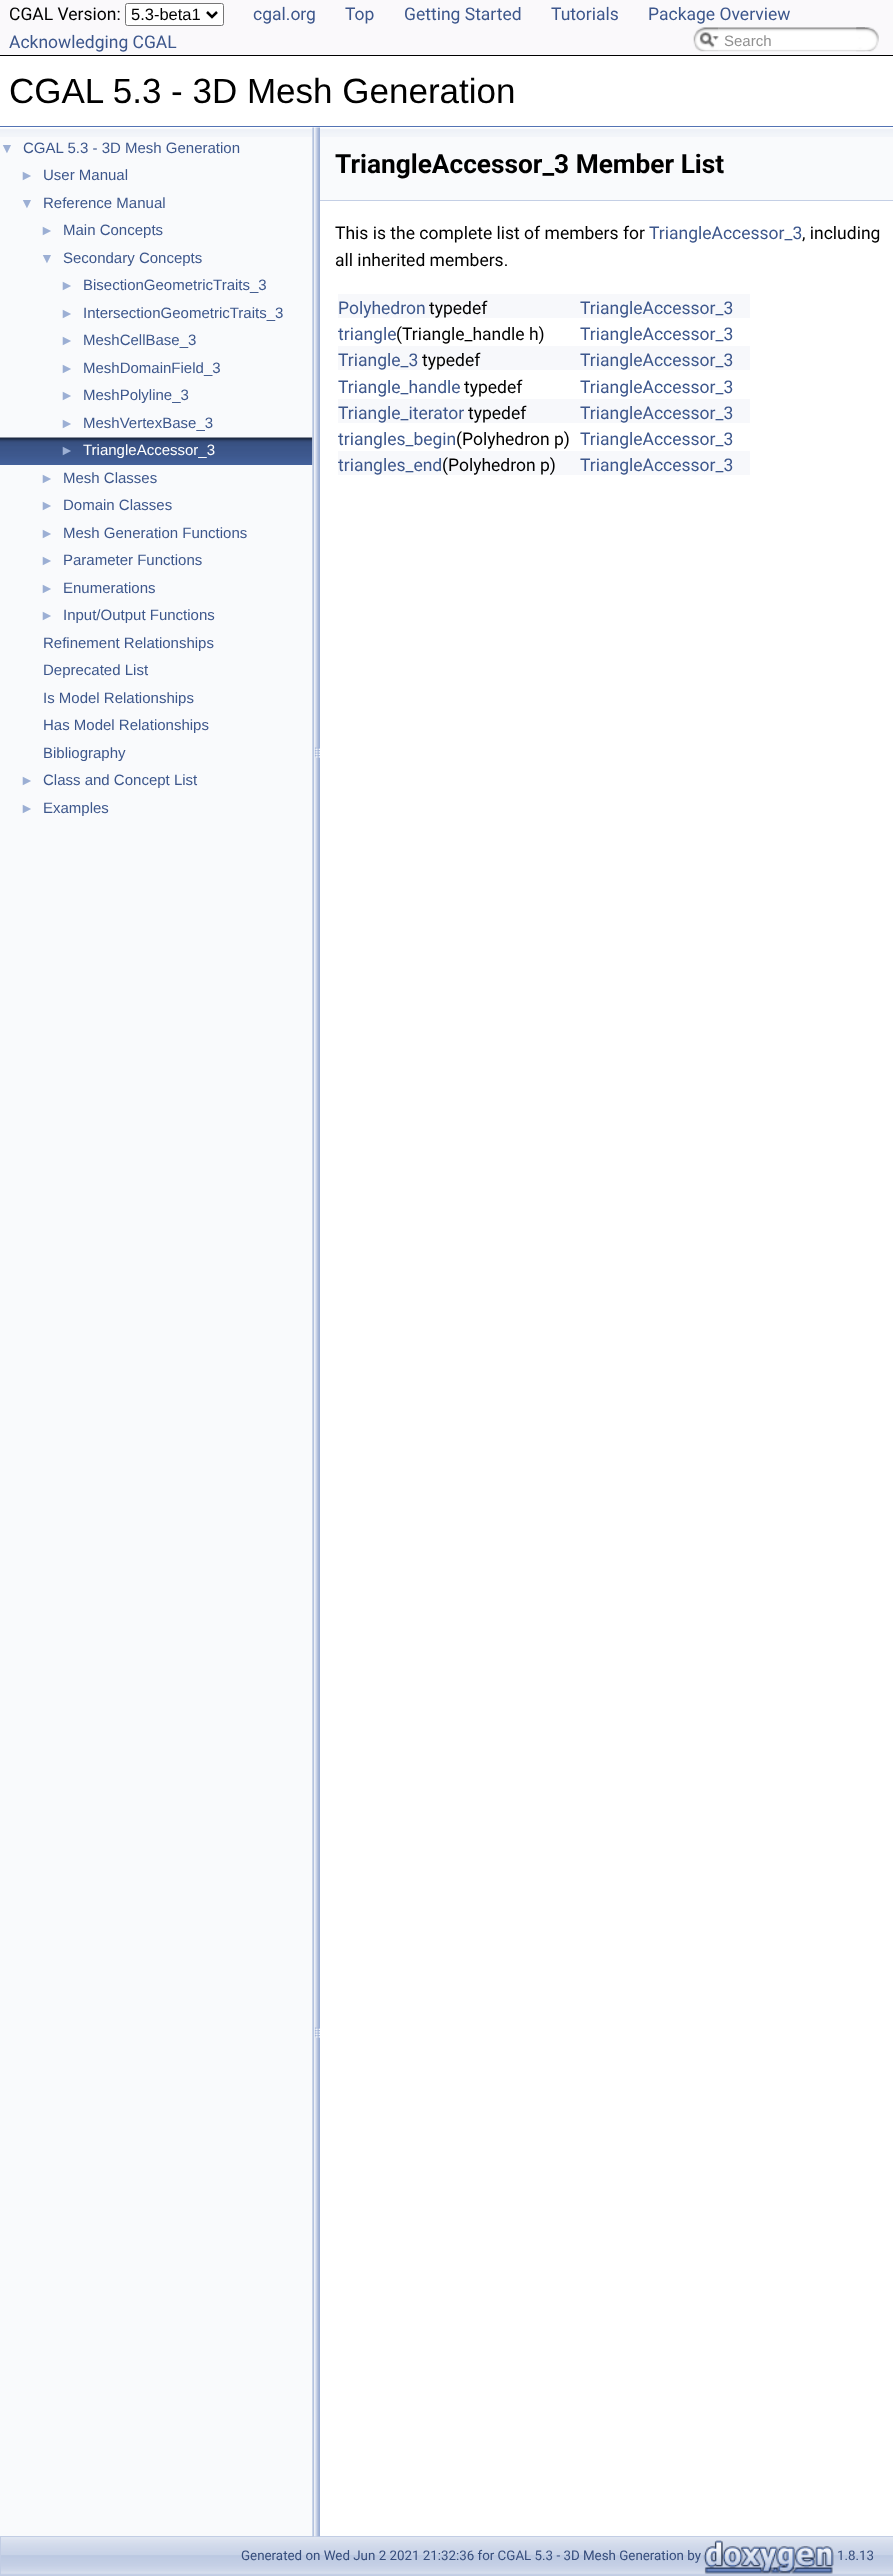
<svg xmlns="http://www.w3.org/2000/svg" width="893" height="2576">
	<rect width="100%" height="100%" fill="#FFFFFF" />
	<rect x="0" y="0" width="893" height="55" fill="#FAF9FB" />
	<rect x="0" y="55" width="893" height="1" fill="#000000" />
	<text x="9" y="20" font-family="Roboto" font-size="17.5" fill="#000000">CGAL Version:</text>
	<rect x="125.5" y="3.5" width="98" height="22" rx="2" fill="#FFFFFF" stroke="#767676" />
	<path d="M207 12L212 17L217 12" fill="none" stroke="#000000" stroke-width="2.5" />
	<text x="131" y="20" font-family="Liberation Sans" font-size="16.5" fill="#000000">5.3-beta1</text>
	<g font-family="Roboto" font-size="17.5" fill="#3D578C">
		<text x="253" y="20">cgal.org</text>
		<text x="345" y="20">Top</text>
		<text x="404" y="20">Getting Started</text>
		<text x="551" y="20">Tutorials</text>
		<text x="648" y="20">Package Overview</text>
		<text x="9" y="48">Acknowledging CGAL</text>
	</g>
	<image x="693" y="27" width="26" height="25" href="assets/img1.png" />
	<image x="699" y="32" width="20" height="16" href="assets/img2.png" />
	<image x="718" y="27" width="147" height="25" href="assets/img3.png" />
	<text x="724" y="46" font-family="Liberation Sans" font-size="15" fill="#909090">Search</text>
	<image x="856" y="27" width="23" height="25" href="assets/img4.png" />
	<rect x="0" y="126" width="893" height="1" fill="#5373B4" />
	<text x="9" y="103" font-family="Liberation Sans" font-size="35" fill="#000000">CGAL 5.3 - 3D Mesh Generation</text>
	<rect x="0" y="128" width="313" height="2408" fill="#F9FAFC" />
	<image x="0" y="129" width="313" height="8" href="assets/img5.png" />
	<text x="0" y="153" font-family="Liberation Sans" font-size="14" fill="#9CAFD4">▼</text>
	<text x="23" y="153" font-family="Liberation Sans" font-size="15" fill="#3D578C">CGAL 5.3 - 3D Mesh Generation</text>
	<text x="20" y="180" font-family="Liberation Sans" font-size="14" fill="#9CAFD4">►</text>
	<text x="43" y="180" font-family="Liberation Sans" font-size="15" fill="#3D578C">User Manual</text>
	<text x="20" y="208" font-family="Liberation Sans" font-size="14" fill="#9CAFD4">▼</text>
	<text x="43" y="208" font-family="Liberation Sans" font-size="15" fill="#3D578C">Reference Manual</text>
	<text x="40" y="235" font-family="Liberation Sans" font-size="14" fill="#9CAFD4">►</text>
	<text x="63" y="235" font-family="Liberation Sans" font-size="15" fill="#3D578C">Main Concepts</text>
	<text x="40" y="263" font-family="Liberation Sans" font-size="14" fill="#9CAFD4">▼</text>
	<text x="63" y="263" font-family="Liberation Sans" font-size="15" fill="#3D578C">Secondary Concepts</text>
	<text x="60" y="290" font-family="Liberation Sans" font-size="14" fill="#9CAFD4">►</text>
	<text x="83" y="290" font-family="Liberation Sans" font-size="15" fill="#3D578C">BisectionGeometricTraits_3</text>
	<text x="60" y="318" font-family="Liberation Sans" font-size="14" fill="#9CAFD4">►</text>
	<text x="83" y="318" font-family="Liberation Sans" font-size="15" fill="#3D578C">IntersectionGeometricTraits_3</text>
	<text x="60" y="345" font-family="Liberation Sans" font-size="14" fill="#9CAFD4">►</text>
	<text x="83" y="345" font-family="Liberation Sans" font-size="15" fill="#3D578C">MeshCellBase_3</text>
	<text x="60" y="373" font-family="Liberation Sans" font-size="14" fill="#9CAFD4">►</text>
	<text x="83" y="373" font-family="Liberation Sans" font-size="15" fill="#3D578C">MeshDomainField_3</text>
	<text x="60" y="400" font-family="Liberation Sans" font-size="14" fill="#9CAFD4">►</text>
	<text x="83" y="400" font-family="Liberation Sans" font-size="15" fill="#3D578C">MeshPolyline_3</text>
	<text x="60" y="428" font-family="Liberation Sans" font-size="14" fill="#9CAFD4">►</text>
	<text x="83" y="428" font-family="Liberation Sans" font-size="15" fill="#3D578C">MeshVertexBase_3</text>
	<image x="0" y="437" width="313" height="28" href="assets/img6.png" />
	<text x="60" y="455" font-family="Liberation Sans" font-size="14" fill="#9CAFD4">►</text>
	<text x="83" y="455" font-family="Liberation Sans" font-size="15" fill="#FFFFFF">TriangleAccessor_3</text>
	<text x="40" y="483" font-family="Liberation Sans" font-size="14" fill="#9CAFD4">►</text>
	<text x="63" y="483" font-family="Liberation Sans" font-size="15" fill="#3D578C">Mesh Classes</text>
	<text x="40" y="510" font-family="Liberation Sans" font-size="14" fill="#9CAFD4">►</text>
	<text x="63" y="510" font-family="Liberation Sans" font-size="15" fill="#3D578C">Domain Classes</text>
	<text x="40" y="538" font-family="Liberation Sans" font-size="14" fill="#9CAFD4">►</text>
	<text x="63" y="538" font-family="Liberation Sans" font-size="15" fill="#3D578C">Mesh Generation Functions</text>
	<text x="40" y="565" font-family="Liberation Sans" font-size="14" fill="#9CAFD4">►</text>
	<text x="63" y="565" font-family="Liberation Sans" font-size="15" fill="#3D578C">Parameter Functions</text>
	<text x="40" y="593" font-family="Liberation Sans" font-size="14" fill="#9CAFD4">►</text>
	<text x="63" y="593" font-family="Liberation Sans" font-size="15" fill="#3D578C">Enumerations</text>
	<text x="40" y="620" font-family="Liberation Sans" font-size="14" fill="#9CAFD4">►</text>
	<g font-family="Liberation Sans" font-size="15" fill="#3D578C">
		<text x="63" y="620">Input/Output Functions</text>
		<text x="43" y="648">Refinement Relationships</text>
		<text x="43" y="675">Deprecated List</text>
		<text x="43" y="703">Is Model Relationships</text>
		<text x="43" y="730">Has Model Relationships</text>
		<text x="43" y="758">Bibliography</text>
	</g>
	<text x="20" y="785" font-family="Liberation Sans" font-size="14" fill="#9CAFD4">►</text>
	<text x="43" y="785" font-family="Liberation Sans" font-size="15" fill="#3D578C">Class and Concept List</text>
	<text x="20" y="813" font-family="Liberation Sans" font-size="14" fill="#9CAFD4">►</text>
	<text x="43" y="813" font-family="Liberation Sans" font-size="15" fill="#3D578C">Examples</text>
	<image x="1" y="2537" width="892" height="38" href="assets/img9.png" />
	<rect x="0.5" y="2536.5" width="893" height="39" fill="none" stroke="#C2CDE4" />
	<image x="312" y="127" width="8" height="2410" href="assets/img7.png" />
	<rect x="320" y="128" width="573" height="72" fill="#F9FAFC" />
	<image x="320" y="129" width="573" height="8" href="assets/img8.png" />
	<rect x="320" y="200" width="573" height="1" fill="#C4CFE5" />
	<text x="335" y="173" font-family="Roboto" font-size="26.25" font-weight="700" fill="#000000">TriangleAccessor_3 Member List</text>
	<text x="335" y="239" font-family="Roboto" font-size="17.5" fill="#000000">This is the complete list of members for</text>
	<text x="649" y="239" font-family="Roboto" font-size="17.5" fill="#3D578C">TriangleAccessor_3</text>
	<g font-family="Roboto" font-size="17.5" fill="#000000">
		<text x="802" y="239">, including</text>
		<text x="335" y="266">all inherited members.</text>
	</g>
	<rect x="338" y="294" width="412" height="24" fill="#F7F8FB" />
	<text x="338" y="314" font-family="Roboto" font-size="17.5" fill="#3D578C">Polyhedron</text>
	<text x="429" y="314" font-family="Roboto" font-size="17.5" fill="#000000">typedef</text>
	<g font-family="Roboto" font-size="17.5" fill="#3D578C">
		<text x="580" y="314">TriangleAccessor_3</text>
		<text x="338" y="340">triangle</text>
	</g>
	<text x="396" y="340" font-family="Roboto" font-size="17.5" fill="#000000">(Triangle_handle h)</text>
	<text x="580" y="340" font-family="Roboto" font-size="17.5" fill="#3D578C">TriangleAccessor_3</text>
	<rect x="338" y="346" width="412" height="24" fill="#F7F8FB" />
	<text x="338" y="366" font-family="Roboto" font-size="17.5" fill="#3D578C">Triangle_3</text>
	<text x="422" y="366" font-family="Roboto" font-size="17.5" fill="#000000">typedef</text>
	<g font-family="Roboto" font-size="17.5" fill="#3D578C">
		<text x="580" y="366">TriangleAccessor_3</text>
		<text x="338" y="393">Triangle_handle</text>
	</g>
	<text x="464" y="393" font-family="Roboto" font-size="17.5" fill="#000000">typedef</text>
	<text x="580" y="393" font-family="Roboto" font-size="17.5" fill="#3D578C">TriangleAccessor_3</text>
	<rect x="338" y="399" width="412" height="24" fill="#F7F8FB" />
	<text x="338" y="419" font-family="Roboto" font-size="17.5" fill="#3D578C">Triangle_iterator</text>
	<text x="468" y="419" font-family="Roboto" font-size="17.5" fill="#000000">typedef</text>
	<g font-family="Roboto" font-size="17.5" fill="#3D578C">
		<text x="580" y="419">TriangleAccessor_3</text>
		<text x="338" y="445">triangles_begin</text>
	</g>
	<text x="456" y="445" font-family="Roboto" font-size="17.5" fill="#000000">(Polyhedron p)</text>
	<text x="580" y="445" font-family="Roboto" font-size="17.5" fill="#3D578C">TriangleAccessor_3</text>
	<rect x="338" y="451" width="412" height="24" fill="#F7F8FB" />
	<text x="338" y="471" font-family="Roboto" font-size="17.5" fill="#3D578C">triangles_end</text>
	<text x="442" y="471" font-family="Roboto" font-size="17.5" fill="#000000">(Polyhedron p)</text>
	<text x="580" y="471" font-family="Roboto" font-size="17.5" fill="#3D578C">TriangleAccessor_3</text>
	<text x="241" y="2560" font-family="Roboto" font-size="13.35" fill="#364D7C">Generated on Wed Jun 2 2021 21:32:36 for CGAL 5.3 - 3D Mesh Generation by</text>
	<image x="703" y="2540" width="131" height="34" href="assets/img10.png" />
	<text x="837" y="2560" font-family="Roboto" font-size="13.35" fill="#364D7C">1.8.13</text>
</svg>
